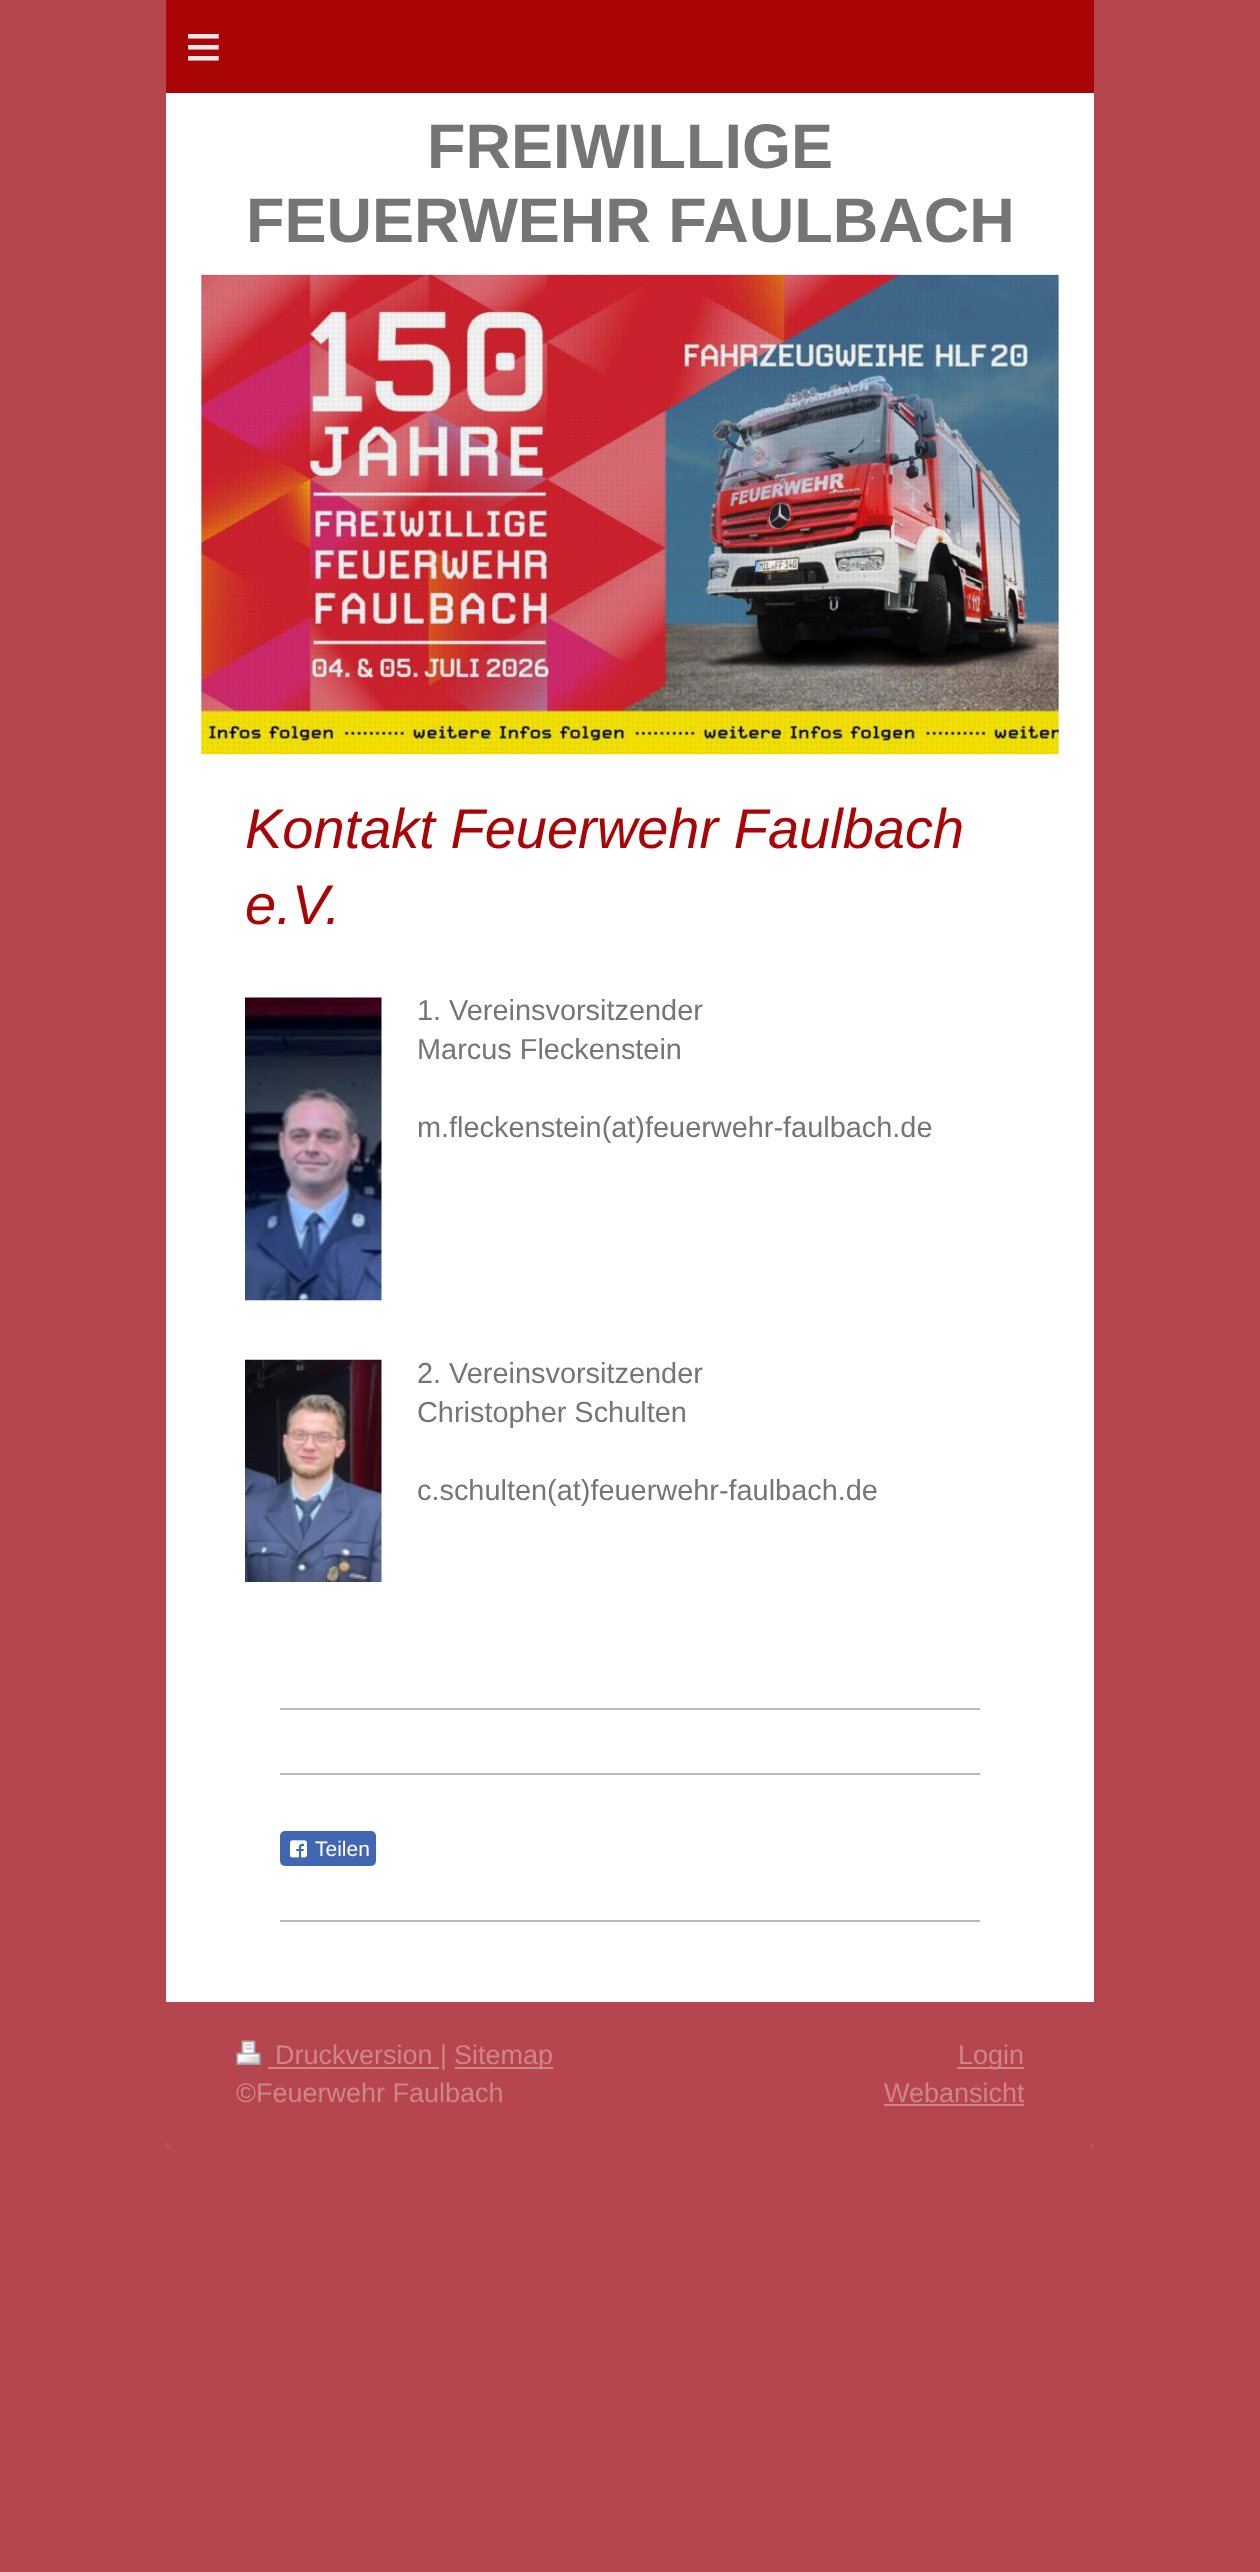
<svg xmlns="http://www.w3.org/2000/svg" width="1260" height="2572">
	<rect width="100%" height="100%" fill="#B5454E" />
	<path d="M166 0H1094V2142C1094 2145 1092 2147 1089 2147H171C168 2147 166 2145 166 2142Z" fill="#FFFFFF" />
	<rect x="166" y="0" width="928" height="93" fill="#A90506" />
	<text x="185" y="68" font-family="Liberation Sans" font-size="63" letter-spacing="18" fill="#F6E6E6">≡</text>
	<g font-family="Liberation Sans" font-size="63" font-weight="700" fill="#757575">
		<text x="427" y="168">FREIWILLIGE</text>
		<text x="246" y="242">FEUERWEHR FAULBACH</text>
	</g>
	<image x="201" y="274" width="858" height="481" href="assets/img1.png" />
	<rect x="201" y="275" width="858" height="479" fill="#EEEEEE" />
	<image x="201" y="274" width="858" height="481" href="assets/img2.png" />
	<image x="201" y="275" width="858" height="479" href="assets/img3.png" />
	<g font-family="Liberation Sans" font-size="56" font-style="italic" fill="#A90506">
		<text x="245" y="848">Kontakt Feuerwehr Faulbach</text>
		<text x="245" y="924">e.V.</text>
	</g>
	<image x="245" y="997" width="137" height="304" href="assets/img4.png" />
	<g font-family="Liberation Sans" font-size="28.9" fill="#757575">
		<text x="417" y="1020">1. Vereinsvorsitzender</text>
		<text x="417" y="1059">Marcus Fleckenstein</text>
		<text x="417" y="1137">m.fleckenstein(at)feuerwehr-faulbach.de</text>
	</g>
	<image x="245" y="1359" width="137" height="223" href="assets/img5.png" />
	<g font-family="Liberation Sans" font-size="28.9" fill="#757575">
		<text x="417" y="1383">2. Vereinsvorsitzender</text>
		<text x="417" y="1422">Christopher Schulten</text>
		<text x="417" y="1500">c.schulten(at)feuerwehr-faulbach.de</text>
	</g>
	<rect x="280" y="1708" width="700" height="2" fill="#BABABA" />
	<rect x="280" y="1773" width="700" height="2" fill="#BABABA" />
	<rect x="280" y="1831" width="96" height="35" rx="5" fill="#4267B2" />
	<image x="290" y="1840" width="17" height="18" href="assets/img6.png" />
	<text x="315" y="1856" font-family="Liberation Sans" font-size="21" fill="#FFFFFF">Teilen</text>
	<rect x="280" y="1920" width="700" height="2" fill="#BABABA" />
	<path d="M166 2002H1094V2142C1094 2145 1092 2147 1089 2147H171C168 2147 166 2145 166 2142Z" fill="#B5454E" />
	<image x="236" y="2040" width="26" height="25" href="assets/img7.png" />
	<rect x="268" y="2067" width="171" height="2" fill="#D0858B" />
	<text x="275" y="2064" font-family="Liberation Sans" font-size="27" fill="#D0858B">Druckversion |</text>
	<rect x="455" y="2067" width="98" height="2" fill="#D0858B" />
	<g font-family="Liberation Sans" font-size="27" fill="#D0858B">
		<text x="454" y="2064">Sitemap</text>
		<text x="236" y="2102">©Feuerwehr Faulbach</text>
	</g>
	<rect x="957" y="2067" width="67" height="2" fill="#D0858B" />
	<g font-family="Liberation Sans" font-size="27" fill="#D0858B">
		<text x="958" y="2064">Login</text>
		<text x="884" y="2102">Webansicht</text>
	</g>
	<rect x="884" y="2104" width="140" height="2" fill="#D0858B" />
</svg>
